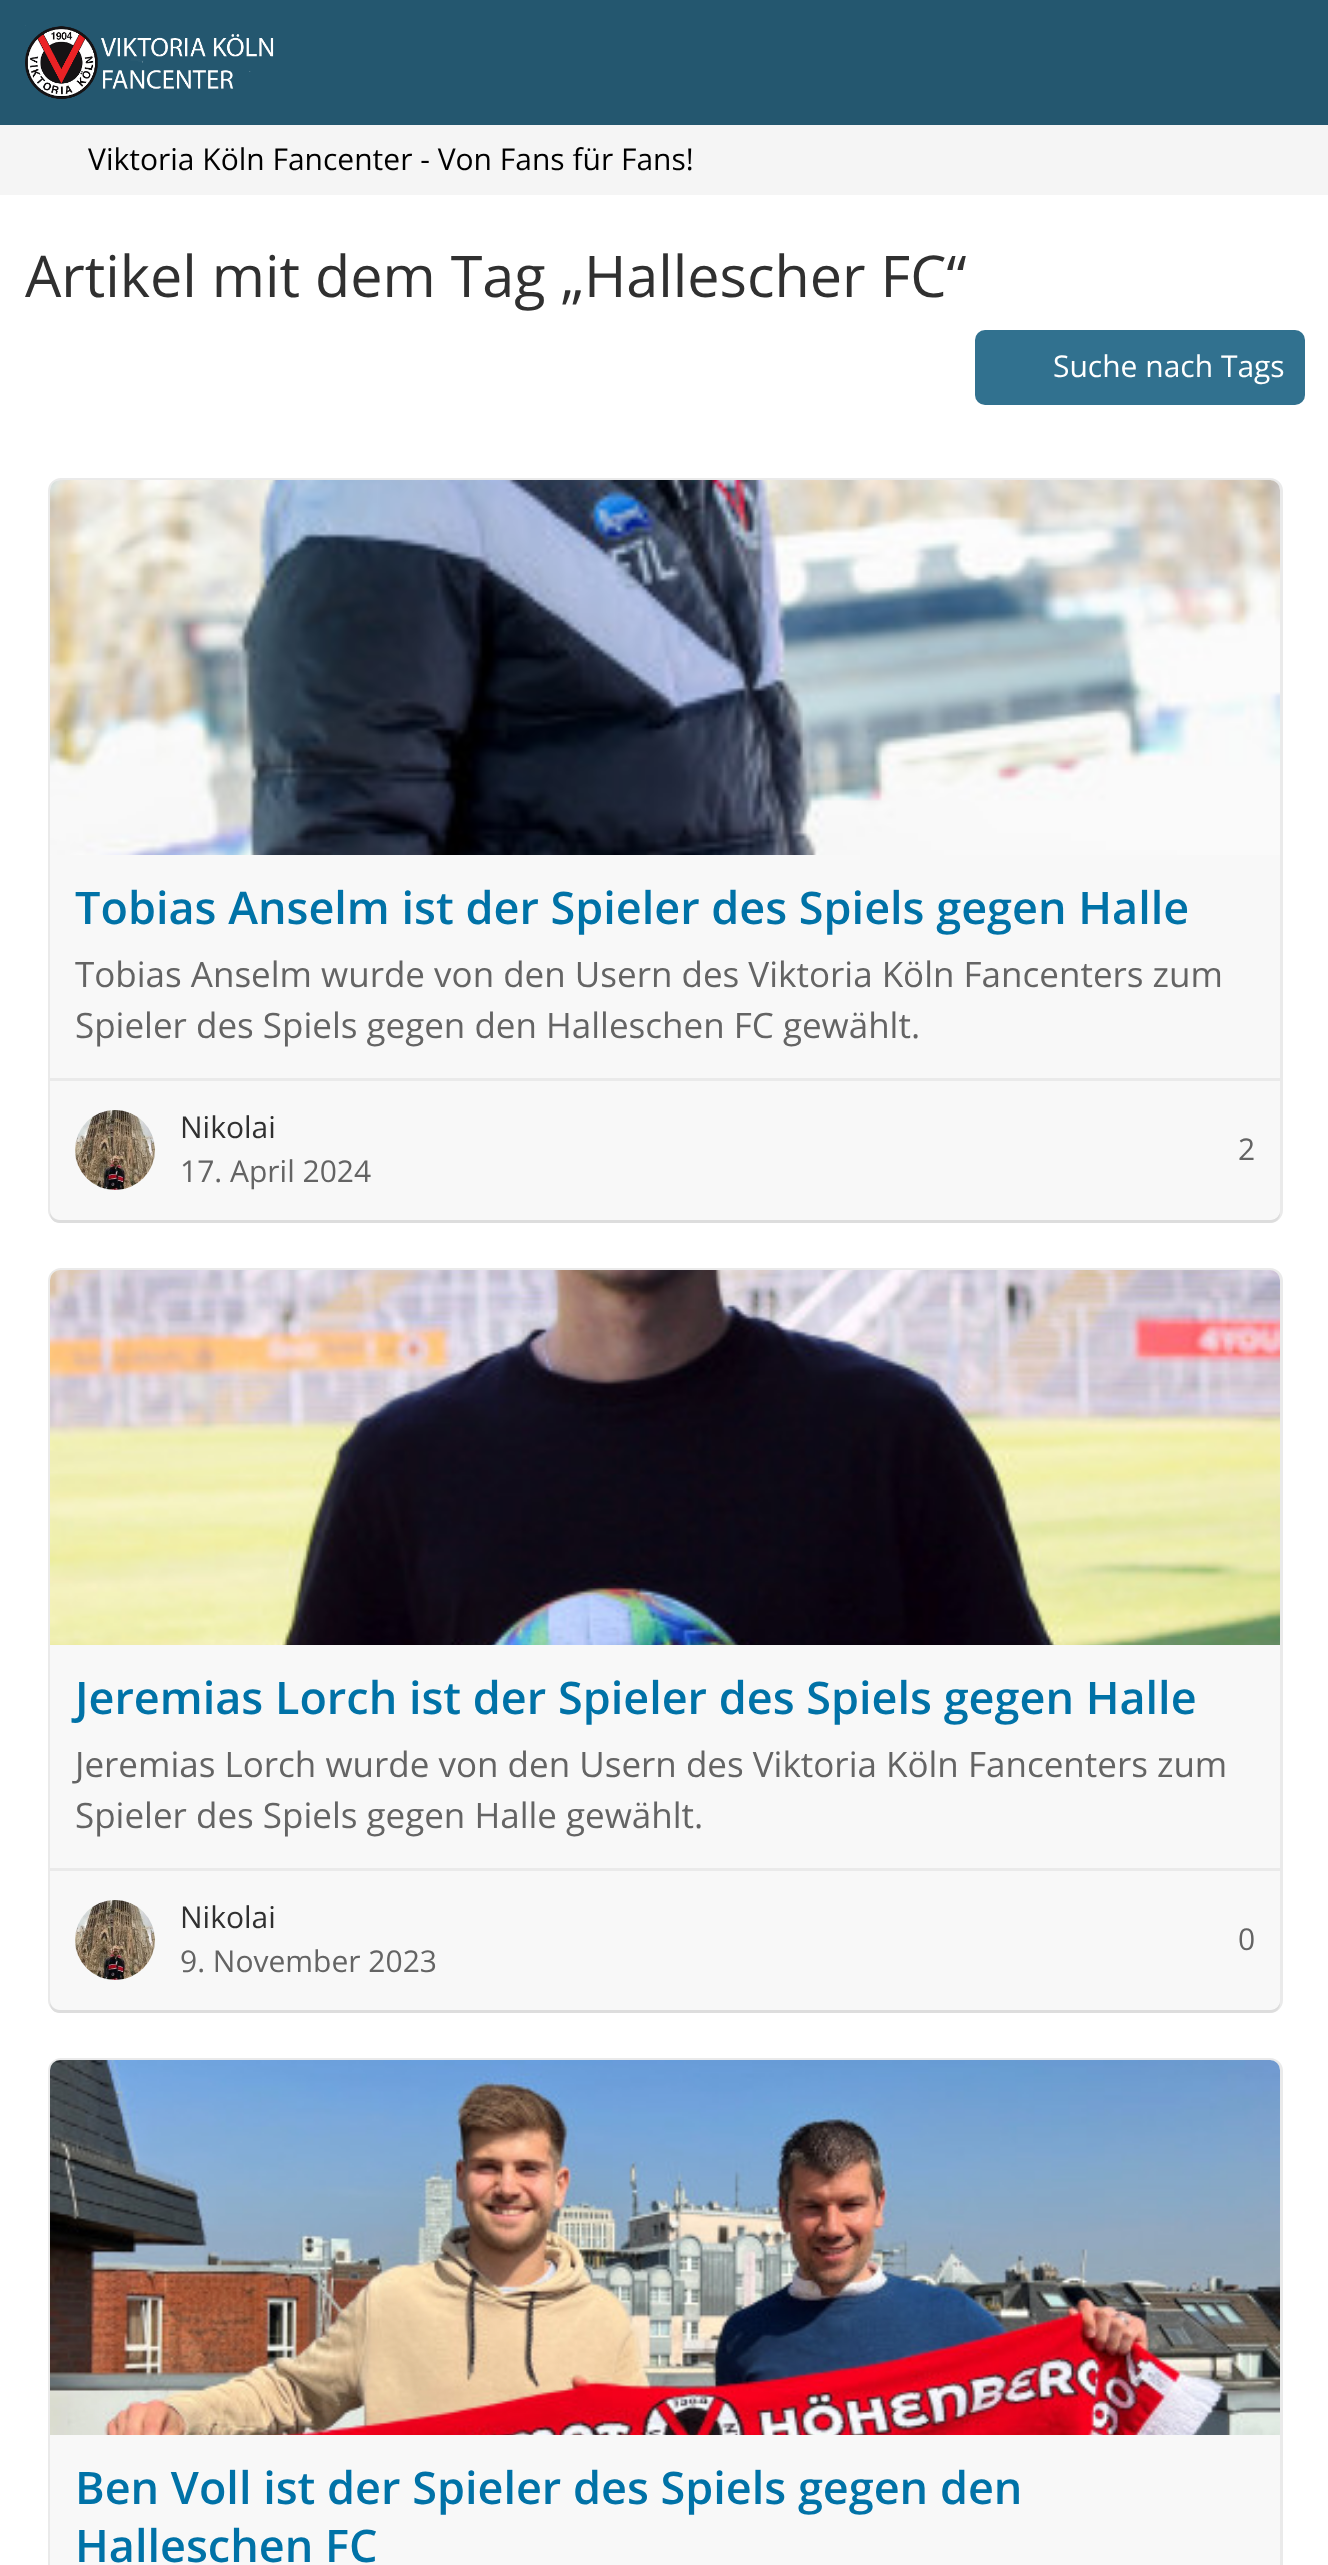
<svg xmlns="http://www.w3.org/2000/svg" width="1328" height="2565">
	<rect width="100%" height="100%" fill="#F5F5F5" />
	<rect x="0" y="0" width="1328" height="125" fill="#24576F" />
	<image x="25" y="25" width="249" height="74" href="assets/img1.png" />
	<text x="88" y="170" font-family="Open Sans" font-size="30" fill="#000000">Viktoria Köln Fancenter - Von Fans für Fans!</text>
	<rect x="0" y="195" width="1328" height="2370" fill="#FFFFFF" />
	<text x="25" y="297" font-family="Open Sans" font-size="57.5" fill="#303030">Artikel mit dem Tag „Hallescher FC“</text>
	<rect x="975" y="330" width="330" height="75" rx="10" fill="#31718F" />
	<text x="1053" y="377" font-family="Open Sans" font-size="30" fill="#FFFFFF">Suche nach Tags</text>
	<rect x="49.5" y="479.5" width="1232" height="742" rx="11.5" fill="none" stroke="#EAEAEA" stroke-width="3" />
	<path d="M50 1210V1213C50 1219 54 1223 60 1223H1270C1276 1223 1280 1219 1280 1213V1210C1280 1216 1276 1220 1270 1220H60C54 1220 50 1216 50 1210Z" fill="#DDDDDD" />
	<rect x="50" y="480" width="1230" height="740" rx="10" fill="#F8F8F8" />
	<image x="50" y="480" width="1230" height="375" href="assets/img2.png" />
	<text x="75" y="924" font-family="Open Sans" font-size="45" font-weight="600" fill="#0072A7">Tobias Anselm ist der Spieler des Spiels gegen Halle</text>
	<g font-family="Open Sans" font-size="35" fill="#646464">
		<text x="75" y="987">Tobias Anselm wurde von den Usern des Viktoria Köln Fancenters zum</text>
		<text x="75" y="1038">Spieler des Spiels gegen den Halleschen FC gewählt.</text>
	</g>
	<rect x="50" y="1078" width="1230" height="3" fill="#EAEAEA" />
	<image x="75" y="1110" width="80" height="80" href="assets/img3.png" />
	<text x="180" y="1138" font-family="Open Sans" font-size="30" fill="#303030">Nikolai</text>
	<g font-family="Open Sans" font-size="30" fill="#646464">
		<text x="180" y="1182">17. April 2024</text>
		<text x="1238" y="1160">2</text>
	</g>
	<rect x="49.5" y="1269.5" width="1232" height="742" rx="11.5" fill="none" stroke="#EAEAEA" stroke-width="3" />
	<path d="M50 2000V2003C50 2009 54 2013 60 2013H1270C1276 2013 1280 2009 1280 2003V2000C1280 2006 1276 2010 1270 2010H60C54 2010 50 2006 50 2000Z" fill="#DDDDDD" />
	<rect x="50" y="1270" width="1230" height="740" rx="10" fill="#F8F8F8" />
	<image x="50" y="1270" width="1230" height="375" href="assets/img4.png" />
	<text x="75" y="1714" font-family="Open Sans" font-size="45" font-weight="600" fill="#0072A7">Jeremias Lorch ist der Spieler des Spiels gegen Halle</text>
	<g font-family="Open Sans" font-size="35" fill="#646464">
		<text x="75" y="1777">Jeremias Lorch wurde von den Usern des Viktoria Köln Fancenters zum</text>
		<text x="75" y="1828">Spieler des Spiels gegen Halle gewählt.</text>
	</g>
	<rect x="50" y="1868" width="1230" height="3" fill="#EAEAEA" />
	<image x="75" y="1900" width="80" height="80" href="assets/img5.png" />
	<text x="180" y="1928" font-family="Open Sans" font-size="30" fill="#303030">Nikolai</text>
	<g font-family="Open Sans" font-size="30" fill="#646464">
		<text x="180" y="1972">9. November 2023</text>
		<text x="1238" y="1950">0</text>
	</g>
	<rect x="49.5" y="2059.5" width="1232" height="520" rx="11.5" fill="none" stroke="#EAEAEA" stroke-width="3" />
	<rect x="50" y="2060" width="1230" height="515" rx="10" fill="#F8F8F8" />
	<image x="50" y="2060" width="1230" height="375" href="assets/img6.png" />
	<g font-family="Open Sans" font-size="45" font-weight="600" fill="#0072A7">
		<text x="75" y="2504">Ben Voll ist der Spieler des Spiels gegen den</text>
		<text x="75" y="2562">Halleschen FC</text>
	</g>
</svg>
